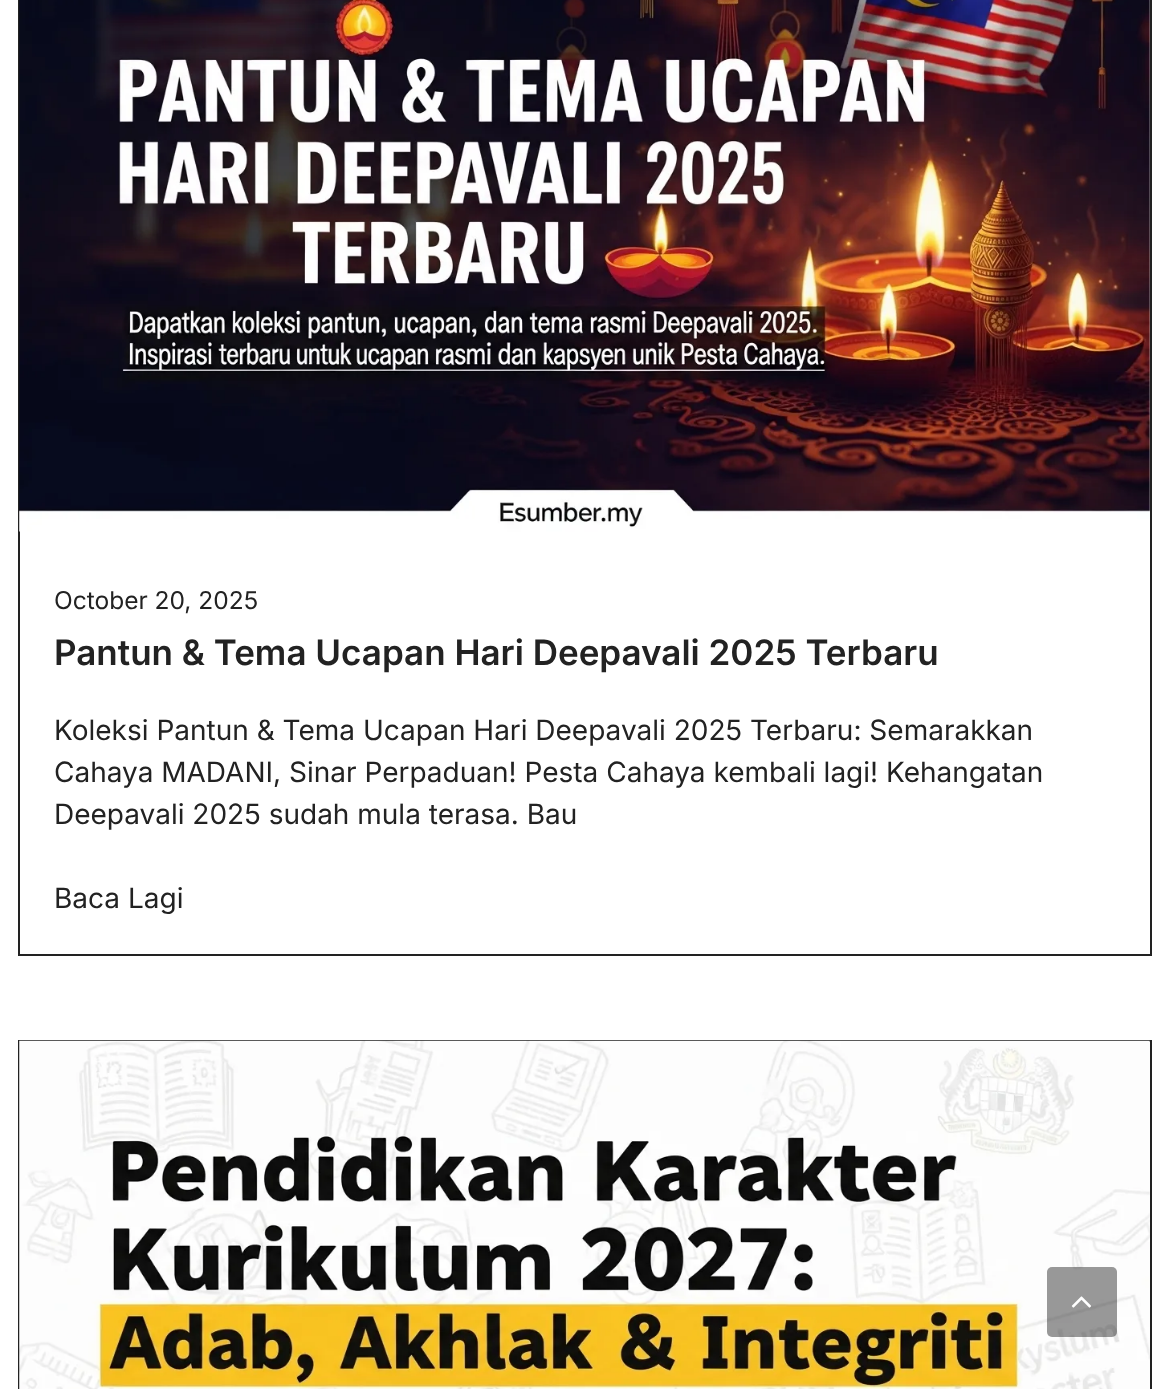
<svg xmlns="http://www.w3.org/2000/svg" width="1168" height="1389">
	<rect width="100%" height="100%" fill="#FFFFFF" />
	<rect x="19" y="-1" width="1132" height="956" fill="none" stroke="#222222" stroke-width="2" />
	<image x="19" y="0" width="1131" height="532" href="assets/img1.png" />
	<text x="54" y="609" font-family="Inter" font-size="24.5" fill="#222222">October 20, 2025</text>
	<text x="54" y="665" font-family="Inter" font-size="35" font-weight="600" fill="#222222">Pantun &amp; Tema Ucapan Hari Deepavali 2025 Terbaru</text>
	<g font-family="Inter" font-size="28" fill="#222222">
		<text x="54" y="740">Koleksi Pantun &amp; Tema Ucapan Hari Deepavali 2025 Terbaru: Semarakkan</text>
		<text x="54" y="782">Cahaya MADANI, Sinar Perpaduan! Pesta Cahaya kembali lagi! Kehangatan</text>
		<text x="54" y="824">Deepavali 2025 sudah mula terasa. Bau</text>
		<text x="54" y="908">Baca Lagi</text>
	</g>
	<rect x="19" y="1041" width="1132" height="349" fill="none" stroke="#222222" stroke-width="2" />
	<image x="19" y="1040" width="1131" height="349" href="assets/img2.png" />
	<rect x="1047" y="1267" width="70" height="70" rx="5" fill="#000000" fill-opacity="0.4" />
	<image x="1071" y="1296" width="20" height="12" href="assets/img3.png" />
</svg>
